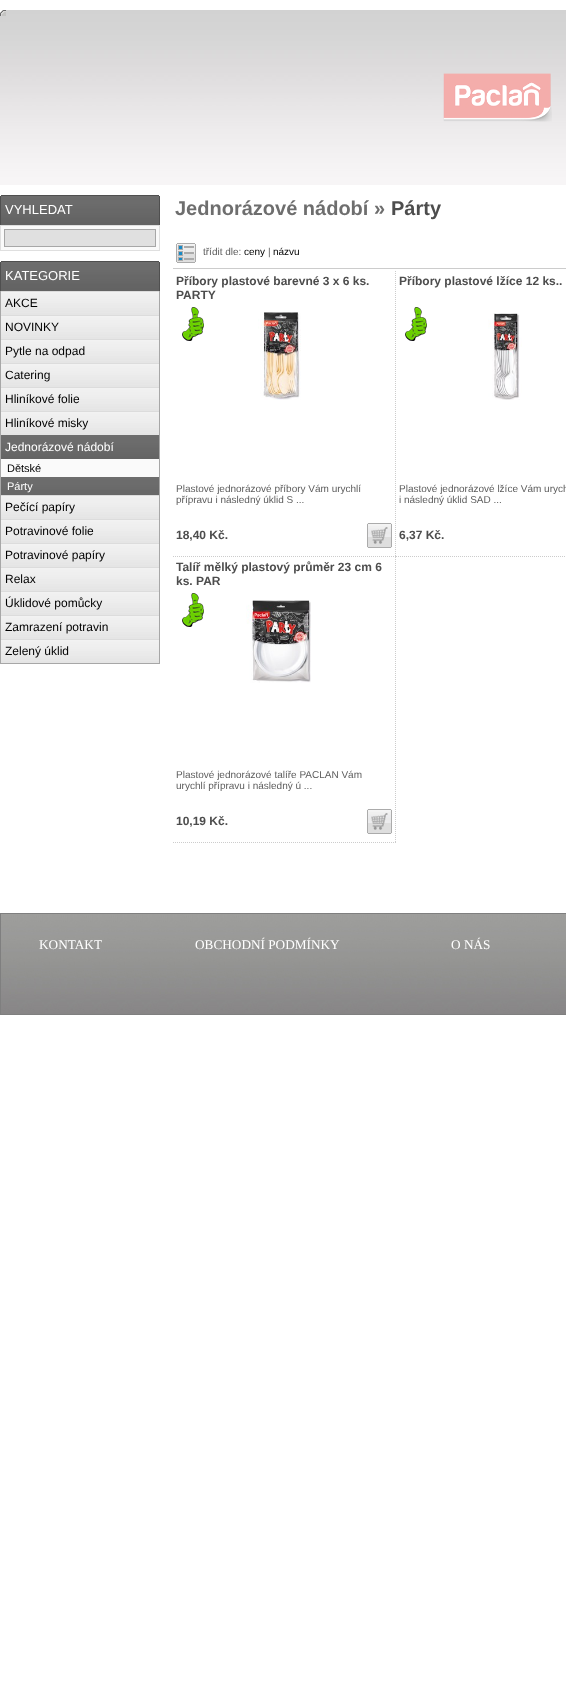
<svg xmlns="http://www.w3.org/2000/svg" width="566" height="1707">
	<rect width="100%" height="100%" fill="#FFFFFF" />
	<image x="0" y="10" width="566" height="175" href="assets/img1.png" />
	<image x="0" y="10" width="6" height="6" href="assets/img2.png" />
	<image x="443" y="73" width="109" height="49" href="assets/img3.png" />
	<image x="1" y="195" width="158" height="30" href="assets/img4.png" />
	<image x="0" y="195" width="1" height="30" href="assets/img5.png" />
	<image x="159" y="195" width="1" height="30" href="assets/img6.png" />
	<text x="5" y="214" font-family="Liberation Sans" font-size="13" fill="#FFFFFF">VYHLEDAT</text>
	<rect x="1" y="226" width="158" height="24" fill="#FAFAFA" />
	<rect x="0" y="225" width="160" height="1" fill="#DFDFDF" />
	<rect x="159" y="225" width="1" height="26" fill="#DFDFDF" />
	<rect x="0" y="250" width="160" height="1" fill="#DFDFDF" />
	<rect x="0" y="225" width="1" height="26" fill="#DFDFDF" />
	<rect x="4.5" y="229.5" width="151" height="17" fill="#E0E0E0" stroke="#A7A7A7" />
	<image x="1" y="261" width="158" height="30" href="assets/img4.png" />
	<image x="0" y="261" width="1" height="30" href="assets/img5.png" />
	<image x="159" y="261" width="1" height="30" href="assets/img6.png" />
	<text x="5" y="280" font-family="Liberation Sans" font-size="13" fill="#FFFFFF">KATEGORIE</text>
	<rect x="159" y="291" width="1" height="373" fill="#A7A7A7" />
	<rect x="0" y="663" width="160" height="1" fill="#A7A7A7" />
	<rect x="0" y="291" width="1" height="373" fill="#A7A7A7" />
	<image x="1" y="291" width="158" height="24" href="assets/img7.png" />
	<text x="5" y="307" font-family="Liberation Sans" font-size="12" fill="#000000">AKCE</text>
	<image x="1" y="315" width="158" height="24" href="assets/img7.png" />
	<text x="5" y="331" font-family="Liberation Sans" font-size="12" fill="#000000">NOVINKY</text>
	<image x="1" y="339" width="158" height="24" href="assets/img7.png" />
	<text x="5" y="355" font-family="Liberation Sans" font-size="12" fill="#000000">Pytle na odpad</text>
	<image x="1" y="363" width="158" height="24" href="assets/img7.png" />
	<text x="5" y="379" font-family="Liberation Sans" font-size="12" fill="#000000">Catering</text>
	<image x="1" y="387" width="158" height="24" href="assets/img7.png" />
	<text x="5" y="403" font-family="Liberation Sans" font-size="12" fill="#000000">Hliníkové folie</text>
	<image x="1" y="411" width="158" height="24" href="assets/img7.png" />
	<text x="5" y="427" font-family="Liberation Sans" font-size="12" fill="#000000">Hliníkové misky</text>
	<image x="1" y="435" width="158" height="24" href="assets/img8.png" />
	<text x="5" y="451" font-family="Liberation Sans" font-size="12" fill="#FFFFFF">Jednorázové nádobí</text>
	<rect x="1" y="459" width="158" height="18" fill="#FAFAFA" />
	<text x="7" y="472" font-family="Liberation Sans" font-size="11" fill="#000000">Dětské</text>
	<image x="1" y="477" width="158" height="18" href="assets/img9.png" />
	<text x="7" y="490" font-family="Liberation Sans" font-size="11" fill="#FFFFFF">Párty</text>
	<image x="1" y="495" width="158" height="24" href="assets/img7.png" />
	<text x="5" y="511" font-family="Liberation Sans" font-size="12" fill="#000000">Pečící papíry</text>
	<image x="1" y="519" width="158" height="24" href="assets/img7.png" />
	<text x="5" y="535" font-family="Liberation Sans" font-size="12" fill="#000000">Potravinové folie</text>
	<image x="1" y="543" width="158" height="24" href="assets/img7.png" />
	<text x="5" y="559" font-family="Liberation Sans" font-size="12" fill="#000000">Potravinové papíry</text>
	<image x="1" y="567" width="158" height="24" href="assets/img7.png" />
	<text x="5" y="583" font-family="Liberation Sans" font-size="12" fill="#000000">Relax</text>
	<image x="1" y="591" width="158" height="24" href="assets/img7.png" />
	<text x="5" y="607" font-family="Liberation Sans" font-size="12" fill="#000000">Úklidové pomůcky</text>
	<image x="1" y="615" width="158" height="24" href="assets/img7.png" />
	<text x="5" y="631" font-family="Liberation Sans" font-size="12" fill="#000000">Zamrazení potravin</text>
	<image x="1" y="639" width="158" height="24" href="assets/img7.png" />
	<text x="5" y="655" font-family="Liberation Sans" font-size="12" fill="#000000">Zelený úklid</text>
	<text x="175" y="215" font-family="Liberation Sans" font-size="20" font-weight="700" fill="#6E6E6E">Jednorázové nádobí »</text>
	<text x="391" y="215" font-family="Liberation Sans" font-size="20" font-weight="700" fill="#4D4D4D">Párty</text>
	<rect x="173" y="268" width="393" height="1" fill="#CCCCCC" />
	<image x="176" y="243" width="20" height="20" href="assets/img10.png" />
	<text x="203" y="255" font-family="Liberation Sans" font-size="10" fill="#5D5D5D">třídit dle:</text>
	<text x="244" y="255" font-family="Liberation Sans" font-size="10" fill="#000000">ceny</text>
	<text x="268" y="255" font-family="Liberation Sans" font-size="10" fill="#5D5D5D">|</text>
	<text x="273" y="255" font-family="Liberation Sans" font-size="10" fill="#000000">názvu</text>
	<path d="M395.5 271V557" fill="none" stroke="#CCCCCC" stroke-dasharray="1 1" />
	<path d="M173 556.5H396" fill="none" stroke="#CCCCCC" stroke-dasharray="1 1" />
	<g font-family="Liberation Sans" font-size="12" font-weight="700" fill="#4D4D4D">
		<text x="176" y="285">Příbory plastové barevné 3 x 6 ks.</text>
		<text x="176" y="299">PARTY</text>
	</g>
	<image x="182" y="307" width="22" height="34" href="assets/img11.png" />
	<image x="258" y="312" width="43" height="88" href="assets/img12.png" />
	<g font-family="Liberation Sans" font-size="10" fill="#5D5D5D">
		<text x="176" y="492">Plastové jednorázové příbory Vám urychlí</text>
		<text x="176" y="503">přípravu i následný úklid S ...</text>
	</g>
	<text x="176" y="539" font-family="Liberation Sans" font-size="12" font-weight="700" fill="#4D4D4D">18,40 Kč.</text>
	<image x="367" y="523" width="25" height="25" href="assets/img13.png" />
	<path d="M396 556.5H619" fill="none" stroke="#CCCCCC" stroke-dasharray="1 1" />
	<text x="399" y="285" font-family="Liberation Sans" font-size="12" font-weight="700" fill="#4D4D4D">Příbory plastové lžíce 12 ks..</text>
	<image x="405" y="307" width="22" height="34" href="assets/img11.png" />
	<image x="488" y="313" width="34" height="87" href="assets/img14.png" />
	<g font-family="Liberation Sans" font-size="10" fill="#5D5D5D">
		<text x="399" y="492">Plastové jednorázové lžíce Vám urych</text>
		<text x="399" y="503">i následný úklid SAD ...</text>
	</g>
	<text x="399" y="539" font-family="Liberation Sans" font-size="12" font-weight="700" fill="#4D4D4D">6,37 Kč.</text>
	<path d="M395.5 557V843" fill="none" stroke="#CCCCCC" stroke-dasharray="1 1" />
	<path d="M173 842.5H396" fill="none" stroke="#CCCCCC" stroke-dasharray="1 1" />
	<g font-family="Liberation Sans" font-size="12" font-weight="700" fill="#4D4D4D">
		<text x="176" y="571">Talíř mělký plastový průměr 23 cm 6</text>
		<text x="176" y="585">ks. PAR</text>
	</g>
	<image x="182" y="593" width="22" height="34" href="assets/img11.png" />
	<image x="246" y="600" width="65" height="83" href="assets/img15.png" />
	<g font-family="Liberation Sans" font-size="10" fill="#5D5D5D">
		<text x="176" y="778">Plastové jednorázové talíře PACLAN Vám</text>
		<text x="176" y="789">urychlí přípravu i následný ú ...</text>
	</g>
	<text x="176" y="825" font-family="Liberation Sans" font-size="12" font-weight="700" fill="#4D4D4D">10,19 Kč.</text>
	<image x="367" y="809" width="25" height="25" href="assets/img13.png" />
	<image x="1" y="914" width="565" height="100" href="assets/img16.png" />
	<rect x="0.5" y="913.5" width="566" height="101" fill="none" stroke="#7F7F7F" />
	<g font-family="Liberation Serif" font-size="13.25" fill="#FFFFFF">
		<text x="39" y="949">KONTAKT</text>
		<text x="195" y="949">OBCHODNÍ PODMÍNKY</text>
		<text x="451" y="949">O NÁS</text>
	</g>
</svg>
